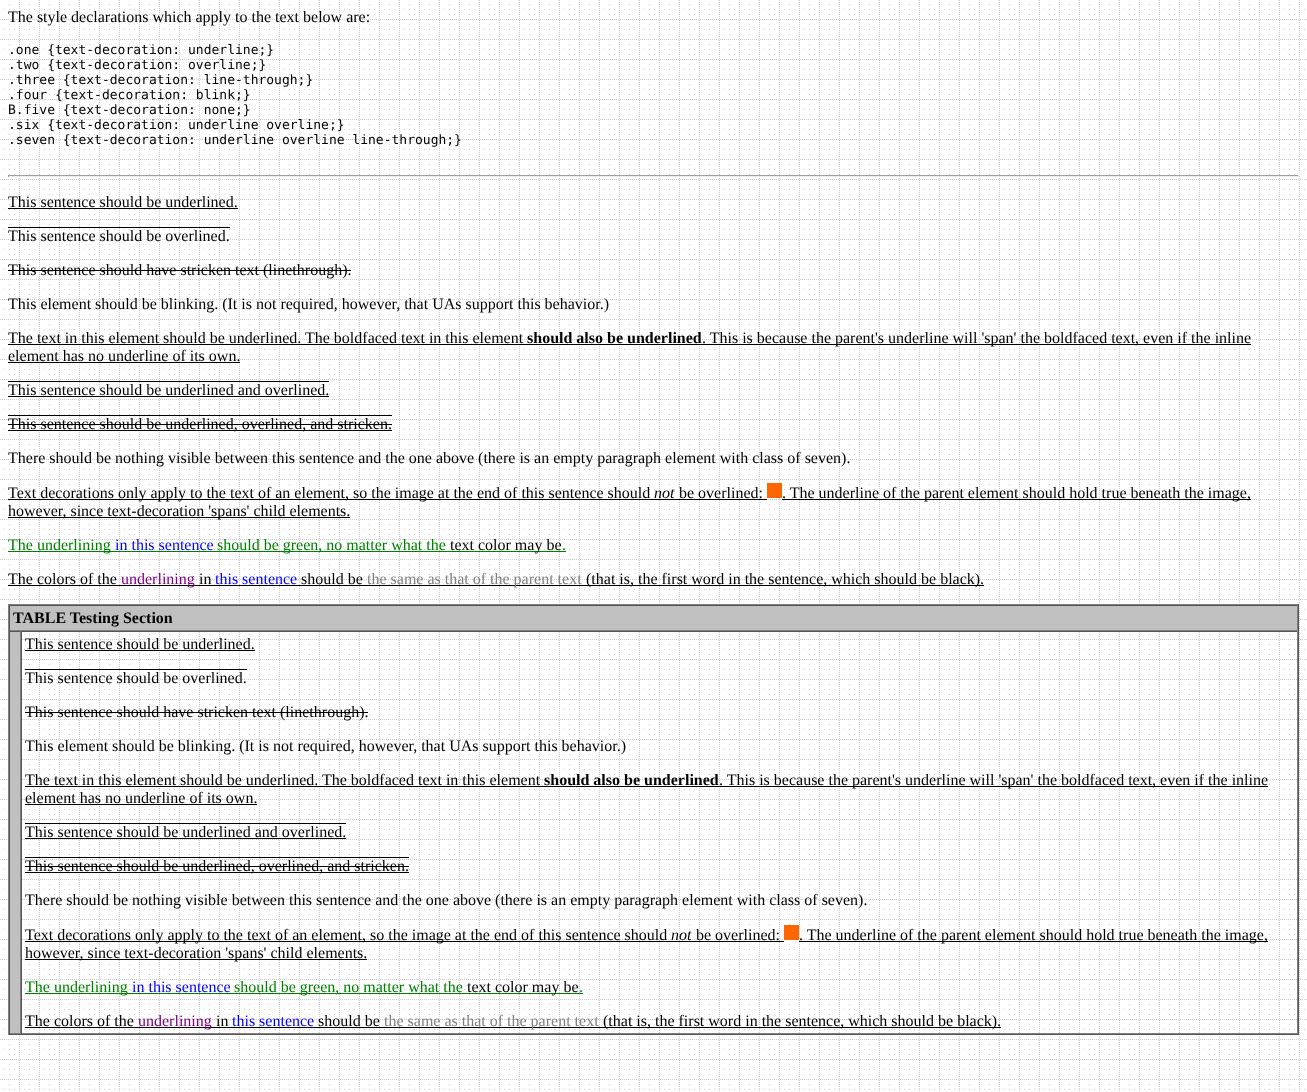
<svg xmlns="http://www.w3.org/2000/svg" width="1307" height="1092">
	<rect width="100%" height="100%" fill="#FFFFFF" />
	<image x="0" y="0" width="1307" height="1092" href="assets/img1.png" />
	<text x="8" y="22" font-family="Liberation Serif" font-size="16" fill="#000000">The style declarations which apply to the text below are:</text>
	<g font-family="DejaVu Sans Mono" font-size="13" fill="#000000">
		<text x="8" y="54">.one {text-decoration: underline;}</text>
		<text x="8" y="69">.two {text-decoration: overline;}</text>
		<text x="8" y="84">.three {text-decoration: line-through;}</text>
		<text x="8" y="99">.four {text-decoration: blink;}</text>
		<text x="8" y="114">B.five {text-decoration: none;}</text>
		<text x="8" y="129">.six {text-decoration: underline overline;}</text>
		<text x="8" y="144">.seven {text-decoration: underline overline line-through;}</text>
	</g>
	<rect x="8" y="175" width="1291" height="1" fill="#9F9F9F" />
	<rect x="1298" y="175" width="1" height="2" fill="#EEEEEE" />
	<rect x="8" y="176" width="1291" height="1" fill="#EEEEEE" />
	<rect x="8" y="175" width="1" height="2" fill="#9F9F9F" />
	<text x="8" y="207" font-family="Liberation Serif" font-size="16" fill="#000000">This sentence should be underlined.</text>
	<rect x="8" y="208" width="230" height="1" fill="#000000" />
	<text x="8" y="241" font-family="Liberation Serif" font-size="16" fill="#000000">This sentence should be overlined.</text>
	<rect x="8" y="227" width="222" height="1" fill="#000000" />
	<text x="8" y="275" font-family="Liberation Serif" font-size="16" fill="#000000">This sentence should have stricken text (linethrough).</text>
	<rect x="8" y="270" width="343" height="1" fill="#000000" />
	<g font-family="Liberation Serif" font-size="16" fill="#000000">
		<text x="8" y="309">This element should be blinking. (It is not required, however, that UAs support this behavior.)</text>
		<text x="8" y="343">The text in this element should be underlined. The boldfaced text in this element</text>
	</g>
	<rect x="8" y="344" width="1243" height="1" fill="#000000" />
	<text x="527" y="343" font-family="Liberation Serif" font-size="16" font-weight="700" fill="#000000">should also be underlined</text>
	<g font-family="Liberation Serif" font-size="16" fill="#000000">
		<text x="702" y="343">. This is because the parent's underline will 'span' the boldfaced text, even if the inline</text>
		<text x="8" y="361">element has no underline of its own.</text>
	</g>
	<rect x="8" y="362" width="232" height="1" fill="#000000" />
	<text x="8" y="395" font-family="Liberation Serif" font-size="16" fill="#000000">This sentence should be underlined and overlined.</text>
	<rect x="8" y="396" width="321" height="1" fill="#000000" />
	<rect x="8" y="381" width="321" height="1" fill="#000000" />
	<rect x="8" y="430" width="384" height="1" fill="#000000" />
	<text x="8" y="429" font-family="Liberation Serif" font-size="16" fill="#000000">This sentence should be underlined, overlined, and stricken.</text>
	<rect x="8" y="415" width="384" height="1" fill="#000000" />
	<rect x="8" y="424" width="384" height="1" fill="#000000" />
	<text x="8" y="463" font-family="Liberation Serif" font-size="16" fill="#000000">There should be nothing visible between this sentence and the one above (there is an empty paragraph element with class of seven).</text>
	<rect x="8" y="499" width="759" height="1" fill="#000000" />
	<text x="8" y="498" font-family="Liberation Serif" font-size="16" fill="#000000">Text decorations only apply to the text of an element, so the image at the end of this sentence should</text>
	<text x="654" y="498" font-family="Liberation Serif" font-size="16" font-style="italic" fill="#000000">not</text>
	<text x="679" y="498" font-family="Liberation Serif" font-size="16" fill="#000000">be overlined:</text>
	<rect x="767" y="483" width="15" height="15" fill="#FF6600" />
	<rect x="782" y="499" width="469" height="1" fill="#000000" />
	<text x="782" y="498" font-family="Liberation Serif" font-size="16" fill="#000000">. The underline of the parent element should hold true beneath the image,</text>
	<rect x="8" y="517" width="342" height="1" fill="#000000" />
	<text x="8" y="516" font-family="Liberation Serif" font-size="16" fill="#000000">however, since text-decoration 'spans' child elements.</text>
	<rect x="8" y="551" width="558" height="1" fill="#008000" />
	<text x="8" y="550" font-family="Liberation Serif" font-size="16" fill="#008000">The underlining</text>
	<text x="115" y="550" font-family="Liberation Serif" font-size="16" fill="#0000FF">in this sentence</text>
	<text x="217" y="550" font-family="Liberation Serif" font-size="16" fill="#008000">should be green, no matter what the</text>
	<text x="450" y="550" font-family="Liberation Serif" font-size="16" fill="#000000">text color may be</text>
	<text x="562" y="550" font-family="Liberation Serif" font-size="16" fill="#008000">.</text>
	<text x="8" y="584" font-family="Liberation Serif" font-size="16" fill="#000000">The colors of the</text>
	<rect x="8" y="585" width="976" height="1" fill="#000000" />
	<text x="121" y="584" font-family="Liberation Serif" font-size="16" fill="#800080">underlining</text>
	<text x="199" y="584" font-family="Liberation Serif" font-size="16" fill="#000000">in</text>
	<text x="215" y="584" font-family="Liberation Serif" font-size="16" fill="#0000FF">this sentence</text>
	<text x="301" y="584" font-family="Liberation Serif" font-size="16" fill="#000000">should be</text>
	<text x="367" y="584" font-family="Liberation Serif" font-size="16" fill="#808080">the same as that of the parent text</text>
	<text x="586" y="584" font-family="Liberation Serif" font-size="16" fill="#000000">(that is, the first word in the sentence, which should be black).</text>
	<rect x="8" y="604" width="1291" height="1" fill="#808080" />
	<rect x="1298" y="604" width="1" height="431" fill="#555555" />
	<rect x="8" y="1034" width="1291" height="1" fill="#555555" />
	<rect x="8" y="604" width="1" height="431" fill="#808080" />
	<rect x="10" y="606" width="1287" height="24" fill="#C0C0C0" />
	<rect x="9" y="605" width="1289" height="1" fill="#555555" />
	<rect x="1297" y="605" width="1" height="26" fill="#808080" />
	<rect x="9" y="630" width="1289" height="1" fill="#808080" />
	<rect x="9" y="605" width="1" height="26" fill="#555555" />
	<text x="13" y="623" font-family="Liberation Serif" font-size="16" font-weight="700" fill="#000000">TABLE Testing Section</text>
	<rect x="10" y="632" width="10" height="401" fill="#C0C0C0" />
	<rect x="9" y="631" width="1289" height="1" fill="#555555" />
	<rect x="20" y="631" width="1" height="403" fill="#808080" />
	<rect x="9" y="1033" width="12" height="1" fill="#808080" />
	<rect x="9" y="631" width="1" height="403" fill="#555555" />
	<rect x="1297" y="631" width="1" height="403" fill="#808080" />
	<rect x="21" y="1033" width="1277" height="1" fill="#808080" />
	<rect x="21" y="631" width="1" height="403" fill="#555555" />
	<text x="25" y="649" font-family="Liberation Serif" font-size="16" fill="#000000">This sentence should be underlined.</text>
	<rect x="25" y="650" width="230" height="1" fill="#000000" />
	<text x="25" y="683" font-family="Liberation Serif" font-size="16" fill="#000000">This sentence should be overlined.</text>
	<rect x="25" y="669" width="222" height="1" fill="#000000" />
	<text x="25" y="717" font-family="Liberation Serif" font-size="16" fill="#000000">This sentence should have stricken text (linethrough).</text>
	<rect x="25" y="712" width="343" height="1" fill="#000000" />
	<g font-family="Liberation Serif" font-size="16" fill="#000000">
		<text x="25" y="751">This element should be blinking. (It is not required, however, that UAs support this behavior.)</text>
		<text x="25" y="785">The text in this element should be underlined. The boldfaced text in this element</text>
	</g>
	<rect x="25" y="786" width="1243" height="1" fill="#000000" />
	<text x="544" y="785" font-family="Liberation Serif" font-size="16" font-weight="700" fill="#000000">should also be underlined</text>
	<g font-family="Liberation Serif" font-size="16" fill="#000000">
		<text x="719" y="785">. This is because the parent's underline will 'span' the boldfaced text, even if the inline</text>
		<text x="25" y="803">element has no underline of its own.</text>
	</g>
	<rect x="25" y="804" width="232" height="1" fill="#000000" />
	<text x="25" y="837" font-family="Liberation Serif" font-size="16" fill="#000000">This sentence should be underlined and overlined.</text>
	<rect x="25" y="838" width="321" height="1" fill="#000000" />
	<rect x="25" y="823" width="321" height="1" fill="#000000" />
	<rect x="25" y="872" width="384" height="1" fill="#000000" />
	<text x="25" y="871" font-family="Liberation Serif" font-size="16" fill="#000000">This sentence should be underlined, overlined, and stricken.</text>
	<rect x="25" y="857" width="384" height="1" fill="#000000" />
	<rect x="25" y="866" width="384" height="1" fill="#000000" />
	<text x="25" y="905" font-family="Liberation Serif" font-size="16" fill="#000000">There should be nothing visible between this sentence and the one above (there is an empty paragraph element with class of seven).</text>
	<rect x="25" y="941" width="759" height="1" fill="#000000" />
	<text x="25" y="940" font-family="Liberation Serif" font-size="16" fill="#000000">Text decorations only apply to the text of an element, so the image at the end of this sentence should</text>
	<text x="671" y="940" font-family="Liberation Serif" font-size="16" font-style="italic" fill="#000000">not</text>
	<text x="696" y="940" font-family="Liberation Serif" font-size="16" fill="#000000">be overlined:</text>
	<rect x="784" y="925" width="15" height="15" fill="#FF6600" />
	<rect x="799" y="941" width="469" height="1" fill="#000000" />
	<text x="799" y="940" font-family="Liberation Serif" font-size="16" fill="#000000">. The underline of the parent element should hold true beneath the image,</text>
	<rect x="25" y="959" width="342" height="1" fill="#000000" />
	<text x="25" y="958" font-family="Liberation Serif" font-size="16" fill="#000000">however, since text-decoration 'spans' child elements.</text>
	<rect x="25" y="993" width="558" height="1" fill="#008000" />
	<text x="25" y="992" font-family="Liberation Serif" font-size="16" fill="#008000">The underlining</text>
	<text x="132" y="992" font-family="Liberation Serif" font-size="16" fill="#0000FF">in this sentence</text>
	<text x="234" y="992" font-family="Liberation Serif" font-size="16" fill="#008000">should be green, no matter what the</text>
	<text x="467" y="992" font-family="Liberation Serif" font-size="16" fill="#000000">text color may be</text>
	<text x="579" y="992" font-family="Liberation Serif" font-size="16" fill="#008000">.</text>
	<text x="25" y="1026" font-family="Liberation Serif" font-size="16" fill="#000000">The colors of the</text>
	<rect x="25" y="1027" width="976" height="1" fill="#000000" />
	<text x="138" y="1026" font-family="Liberation Serif" font-size="16" fill="#800080">underlining</text>
	<text x="216" y="1026" font-family="Liberation Serif" font-size="16" fill="#000000">in</text>
	<text x="232" y="1026" font-family="Liberation Serif" font-size="16" fill="#0000FF">this sentence</text>
	<text x="318" y="1026" font-family="Liberation Serif" font-size="16" fill="#000000">should be</text>
	<text x="384" y="1026" font-family="Liberation Serif" font-size="16" fill="#808080">the same as that of the parent text</text>
	<text x="603" y="1026" font-family="Liberation Serif" font-size="16" fill="#000000">(that is, the first word in the sentence, which should be black).</text>
</svg>
